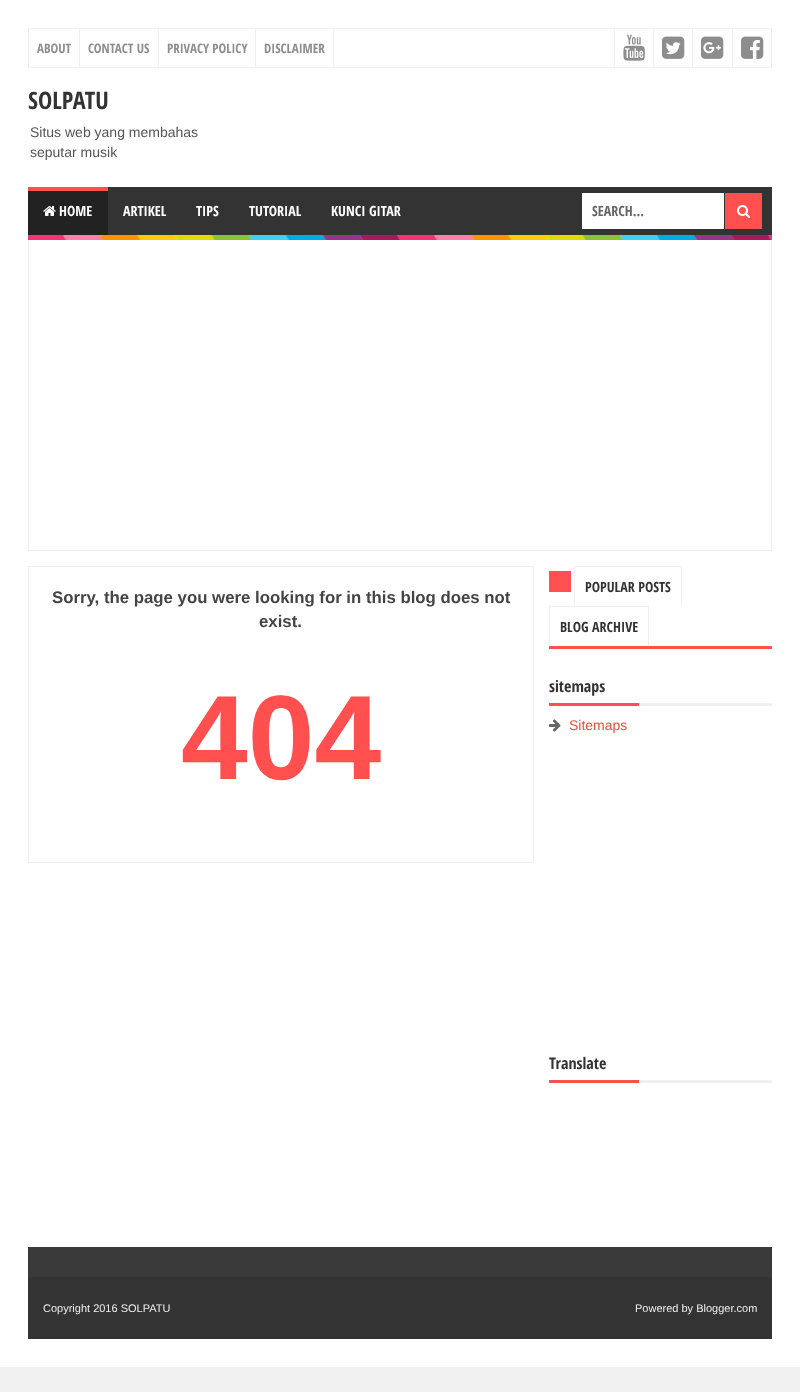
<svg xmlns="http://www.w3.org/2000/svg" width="800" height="1392">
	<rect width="100%" height="100%" fill="#F0F0F0" />
	<rect x="0" y="0" width="800" height="1367" fill="#FFFFFF" />
	<rect x="28.5" y="28.5" width="743" height="39" fill="none" stroke="#F0F0F0" />
	<rect x="79" y="29" width="1" height="38" fill="#F0F0F0" />
	<text x="37" y="53" font-family="Open Sans Condensed" font-size="13" font-weight="700" fill="#8D8D8D">ABOUT</text>
	<rect x="158" y="29" width="1" height="38" fill="#F0F0F0" />
	<text x="88" y="53" font-family="Open Sans Condensed" font-size="13" font-weight="700" fill="#8D8D8D">CONTACT US</text>
	<rect x="255" y="29" width="1" height="38" fill="#F0F0F0" />
	<text x="167" y="53" font-family="Open Sans Condensed" font-size="13" font-weight="700" fill="#8D8D8D">PRIVACY POLICY</text>
	<rect x="333" y="29" width="1" height="38" fill="#F0F0F0" />
	<text x="264" y="53" font-family="Open Sans Condensed" font-size="13" font-weight="700" fill="#8D8D8D">DISCLAIMER</text>
	<rect x="614" y="29" width="1" height="38" fill="#F0F0F0" />
	<image x="623" y="34" width="22" height="27" href="assets/img1.png" />
	<rect x="653" y="29" width="1" height="38" fill="#F0F0F0" />
	<image x="662" y="36" width="23" height="23" href="assets/img2.png" />
	<rect x="692" y="29" width="1" height="38" fill="#F0F0F0" />
	<image x="701" y="36" width="23" height="23" href="assets/img3.png" />
	<rect x="732" y="29" width="1" height="38" fill="#F0F0F0" />
	<image x="741" y="36" width="23" height="23" href="assets/img4.png" />
	<text x="28" y="109" font-family="Open Sans Condensed" font-size="24" font-weight="700" fill="#333333">SOLPATU</text>
	<g font-family="Liberation Sans" font-size="14" fill="#555555">
		<text x="30" y="137">Situs web yang membahas</text>
		<text x="30" y="157">seputar musik</text>
	</g>
	<rect x="108" y="187" width="664" height="48" fill="#333333" />
	<rect x="28" y="191" width="80" height="44" fill="#222222" />
	<rect x="28" y="187" width="80" height="4" fill="#FF4F4F" />
	<image x="43" y="206" width="13" height="10" href="assets/img5.png" />
	<g font-family="Open Sans Condensed" font-size="14" font-weight="700" fill="#FFFFFF">
		<text x="59" y="216">HOME</text>
		<text x="123" y="216">ARTIKEL</text>
		<text x="196" y="216">TIPS</text>
		<text x="249" y="216">TUTORIAL</text>
		<text x="331" y="216">KUNCI GITAR</text>
	</g>
	<rect x="582" y="193" width="142" height="36" fill="#FFFFFF" />
	<text x="592" y="216" font-family="Open Sans Condensed" font-size="14" font-weight="700" fill="#666666">SEARCH...</text>
	<rect x="725" y="193" width="37" height="36" fill="#FF4F4F" />
	<image x="737" y="205" width="13" height="13" href="assets/img6.png" />
	<image x="28" y="235" width="744" height="5" href="assets/img7.png" />
	<rect x="771" y="240" width="1" height="311" fill="#F0F0F0" />
	<rect x="28" y="550" width="744" height="1" fill="#F0F0F0" />
	<rect x="28" y="240" width="1" height="311" fill="#F0F0F0" />
	<rect x="28.5" y="566.5" width="505" height="296" fill="none" stroke="#F0F0F0" />
	<g font-family="Liberation Sans" font-size="16.8" font-weight="700" fill="#444444">
		<text x="52" y="603">Sorry, the page you were looking for in this blog does not</text>
		<text x="259" y="627">exist.</text>
	</g>
	<text x="181" y="779" font-family="Liberation Sans" font-size="120" font-weight="700" fill="#FF4F4F">404</text>
	<rect x="549" y="646" width="223" height="3" fill="#FF4F4F" />
	<rect x="549" y="571" width="22" height="21" fill="#FF4F4F" />
	<rect x="574" y="566" width="108" height="1" fill="#F0F0F0" />
	<rect x="681" y="566" width="1" height="40" fill="#F0F0F0" />
	<rect x="574" y="566" width="1" height="40" fill="#F0F0F0" />
	<text x="585" y="592" font-family="Open Sans Condensed" font-size="14" font-weight="700" fill="#333333">POPULAR POSTS</text>
	<rect x="549" y="606" width="100" height="1" fill="#F0F0F0" />
	<rect x="648" y="606" width="1" height="40" fill="#F0F0F0" />
	<rect x="549" y="606" width="1" height="40" fill="#F0F0F0" />
	<text x="560" y="632" font-family="Open Sans Condensed" font-size="14" font-weight="700" fill="#333333">BLOG ARCHIVE</text>
	<rect x="639" y="703" width="133" height="3" fill="#F0F0F0" />
	<text x="549" y="692" font-family="Open Sans Condensed" font-size="16" font-weight="700" fill="#333333">sitemaps</text>
	<rect x="549" y="703" width="90" height="3" fill="#FF4F4F" />
	<image x="549" y="719" width="12" height="13" href="assets/img8.png" />
	<text x="569" y="730" font-family="Liberation Sans" font-size="14" fill="#EE4B3D">Sitemaps</text>
	<rect x="639" y="1080" width="133" height="3" fill="#F0F0F0" />
	<text x="549" y="1069" font-family="Open Sans Condensed" font-size="16" font-weight="700" fill="#333333">Translate</text>
	<rect x="549" y="1080" width="90" height="3" fill="#FF4F4F" />
	<rect x="28" y="1247" width="744" height="30" fill="#3A3A3A" />
	<rect x="28" y="1277" width="744" height="62" fill="#333333" />
	<g font-family="Liberation Sans" font-size="11" fill="#EEEEEE">
		<text x="43" y="1312">Copyright 2016 SOLPATU</text>
		<text x="635" y="1312">Powered by Blogger.com</text>
	</g>
</svg>
